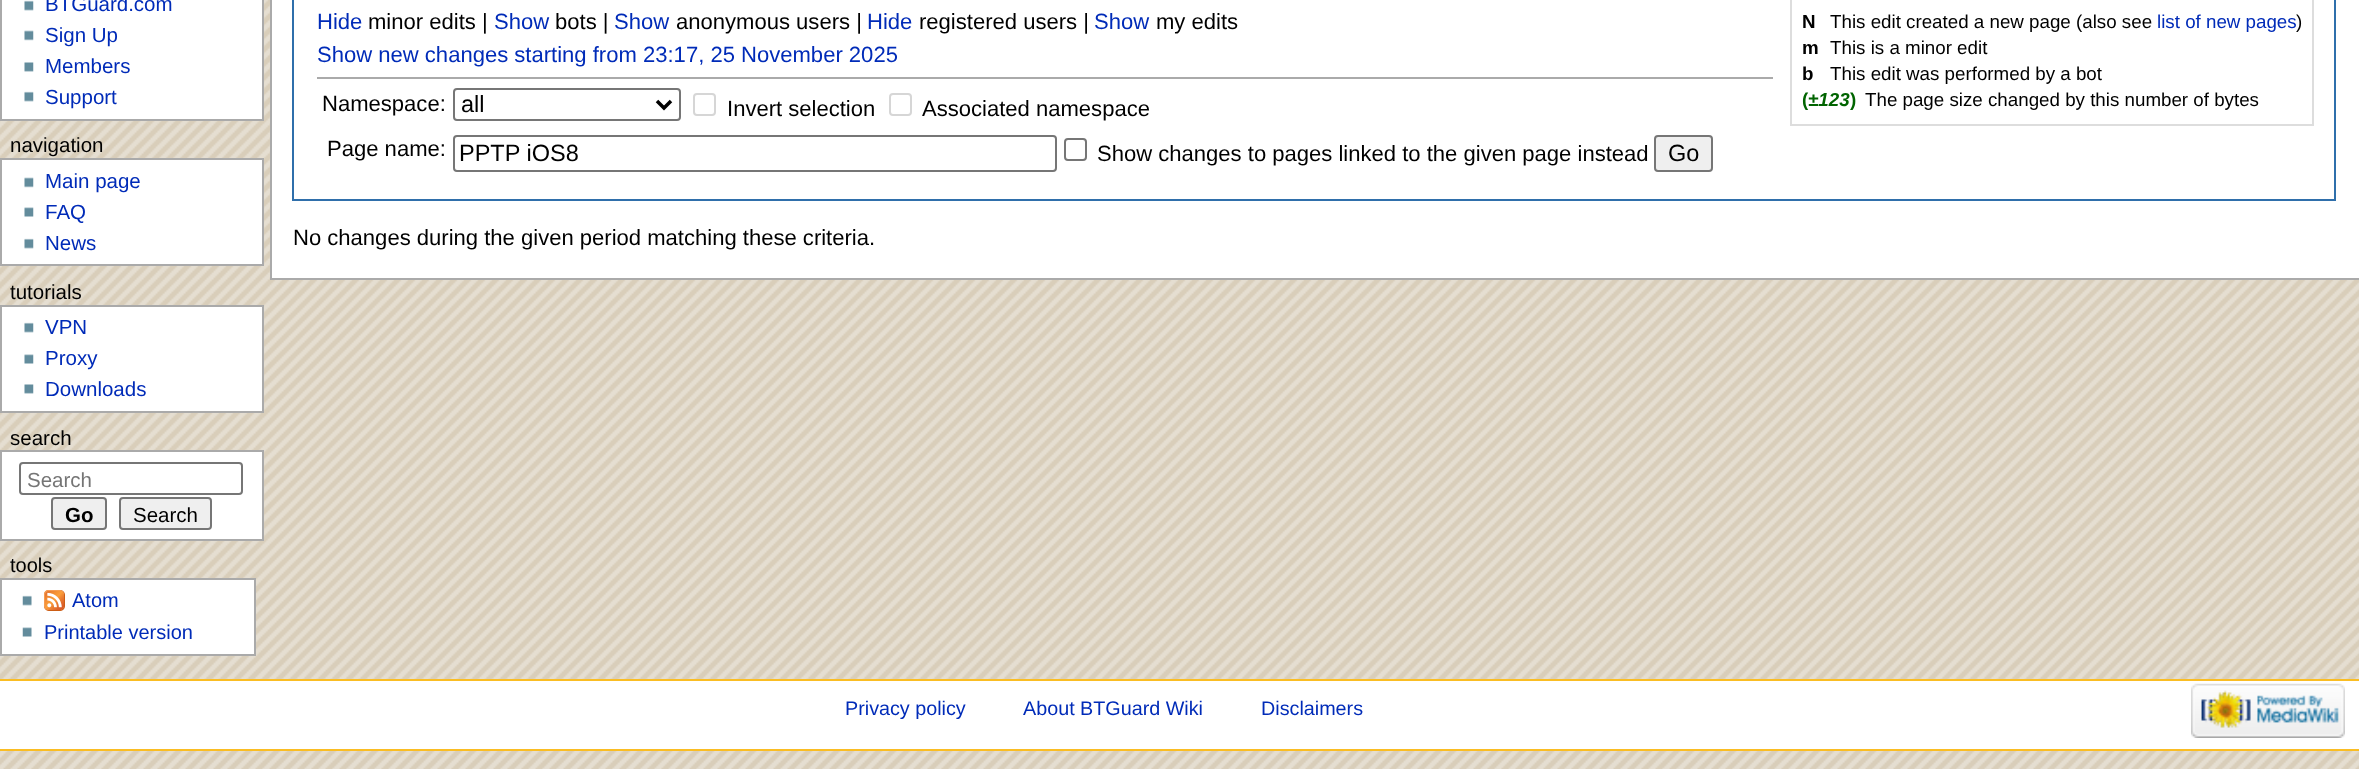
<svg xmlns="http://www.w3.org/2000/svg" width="2359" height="769">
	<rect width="100%" height="100%" fill="#FFFFFF" />
	<image x="0" y="0" width="2359" height="769" href="assets/img1.png" />
	<rect x="1" y="-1" width="262" height="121" fill="#FFFFFF" stroke="#AAAAAA" stroke-width="2" />
	<image x="24" y="0" width="10" height="11" href="assets/img2.png" />
	<text x="45" y="11" font-family="Liberation Sans" font-size="20.5" fill="#002BB8">BTGuard.com</text>
	<image x="24" y="30" width="10" height="11" href="assets/img3.png" />
	<text x="45" y="42" font-family="Liberation Sans" font-size="20.5" fill="#002BB8">Sign Up</text>
	<image x="24" y="62" width="10" height="10" href="assets/img4.png" />
	<text x="45" y="73" font-family="Liberation Sans" font-size="20.5" fill="#002BB8">Members</text>
	<image x="24" y="91" width="10" height="11" href="assets/img2.png" />
	<text x="45" y="104" font-family="Liberation Sans" font-size="20.5" fill="#002BB8">Support</text>
	<text x="10" y="152" font-family="Liberation Sans" font-size="20.5" fill="#000000">navigation</text>
	<rect x="1" y="159" width="262" height="106" fill="#FFFFFF" stroke="#AAAAAA" stroke-width="2" />
	<image x="24" y="177" width="10" height="11" href="assets/img3.png" />
	<text x="45" y="188" font-family="Liberation Sans" font-size="20.5" fill="#002BB8">Main page</text>
	<image x="24" y="207" width="10" height="10" href="assets/img5.png" />
	<text x="45" y="219" font-family="Liberation Sans" font-size="20.5" fill="#002BB8">FAQ</text>
	<image x="24" y="238" width="10" height="11" href="assets/img2.png" />
	<text x="45" y="250" font-family="Liberation Sans" font-size="20.5" fill="#002BB8">News</text>
	<text x="10" y="299" font-family="Liberation Sans" font-size="20.5" fill="#000000">tutorials</text>
	<rect x="1" y="306" width="262" height="106" fill="#FFFFFF" stroke="#AAAAAA" stroke-width="2" />
	<image x="24" y="322" width="10" height="11" href="assets/img2.png" />
	<text x="45" y="334" font-family="Liberation Sans" font-size="20.5" fill="#002BB8">VPN</text>
	<image x="24" y="354" width="10" height="10" href="assets/img5.png" />
	<text x="45" y="365" font-family="Liberation Sans" font-size="20.5" fill="#002BB8">Proxy</text>
	<image x="24" y="384" width="10" height="10" href="assets/img4.png" />
	<text x="45" y="396" font-family="Liberation Sans" font-size="20.5" fill="#002BB8">Downloads</text>
	<text x="10" y="445" font-family="Liberation Sans" font-size="20.5" fill="#000000">search</text>
	<rect x="1" y="451" width="262" height="89" fill="#FFFFFF" stroke="#AAAAAA" stroke-width="2" />
	<rect x="20" y="463" width="222" height="31" rx="3" fill="none" stroke="#767676" stroke-width="2" />
	<text x="27" y="487" font-family="Liberation Sans" font-size="20.5" fill="#757575">Search</text>
	<rect x="52" y="498" width="54" height="31" rx="3" fill="#EFEFEF" stroke="#767676" stroke-width="2" />
	<text x="65" y="522" font-family="Liberation Sans" font-size="20.5" font-weight="700" fill="#000000">Go</text>
	<rect x="120" y="498" width="91" height="31" rx="3" fill="#EFEFEF" stroke="#767676" stroke-width="2" />
	<text x="133" y="522" font-family="Liberation Sans" font-size="20.5" fill="#000000">Search</text>
	<text x="10" y="572" font-family="Liberation Sans" font-size="20" fill="#000000">tools</text>
	<rect x="1" y="579" width="254" height="76" fill="#FFFFFF" stroke="#AAAAAA" stroke-width="2" />
	<image x="22" y="595" width="10" height="11" href="assets/img6.png" />
	<image x="44" y="590" width="21" height="21" href="assets/img7.png" />
	<text x="72" y="607" font-family="Liberation Sans" font-size="20" fill="#002BB8">Atom</text>
	<image x="22" y="627" width="10" height="10" href="assets/img8.png" />
	<text x="44" y="639" font-family="Liberation Sans" font-size="20" fill="#002BB8">Printable version</text>
	<rect x="272" y="0" width="2087" height="278" fill="#FFFFFF" />
	<rect x="270" y="278" width="2089" height="2" fill="#AAAAAA" />
	<rect x="270" y="0" width="2" height="280" fill="#AAAAAA" />
	<rect x="293" y="-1" width="2042" height="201" fill="none" stroke="#2F6FAB" stroke-width="2" />
	<text x="317" y="29" font-family="Liberation Sans" font-size="22.05" fill="#002BB8">Hide</text>
	<text x="368" y="29" font-family="Liberation Sans" font-size="22.05" fill="#000000">minor edits |</text>
	<text x="494" y="29" font-family="Liberation Sans" font-size="22.05" fill="#002BB8">Show</text>
	<text x="555" y="29" font-family="Liberation Sans" font-size="22.05" fill="#000000">bots |</text>
	<text x="614" y="29" font-family="Liberation Sans" font-size="22.05" fill="#002BB8">Show</text>
	<text x="676" y="29" font-family="Liberation Sans" font-size="22.05" fill="#000000">anonymous users |</text>
	<text x="867" y="29" font-family="Liberation Sans" font-size="22.05" fill="#002BB8">Hide</text>
	<text x="919" y="29" font-family="Liberation Sans" font-size="22.05" fill="#000000">registered users |</text>
	<text x="1094" y="29" font-family="Liberation Sans" font-size="22.05" fill="#002BB8">Show</text>
	<text x="1156" y="29" font-family="Liberation Sans" font-size="22.05" fill="#000000">my edits</text>
	<rect x="1791" y="-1" width="522" height="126" fill="none" stroke="#DDDDDD" stroke-width="2" />
	<text x="1802" y="28" font-family="Liberation Sans" font-size="18.75" font-weight="700" fill="#000000">N</text>
	<text x="1830" y="28" font-family="Liberation Sans" font-size="18.75" fill="#000000">This edit created a new page (also see</text>
	<text x="2157" y="28" font-family="Liberation Sans" font-size="18.75" fill="#002BB8">list of new pages</text>
	<text x="2296" y="28" font-family="Liberation Sans" font-size="18.75" fill="#000000">)</text>
	<text x="1802" y="54" font-family="Liberation Sans" font-size="18.75" font-weight="700" fill="#000000">m</text>
	<text x="1830" y="54" font-family="Liberation Sans" font-size="18.75" fill="#000000">This is a minor edit</text>
	<text x="1802" y="80" font-family="Liberation Sans" font-size="18.75" font-weight="700" fill="#000000">b</text>
	<text x="1830" y="80" font-family="Liberation Sans" font-size="18.75" fill="#000000">This edit was performed by a bot</text>
	<text x="1802" y="106" font-family="Liberation Sans" font-size="18.75" font-weight="700" fill="#006400">(</text>
	<text x="1808" y="106" font-family="Liberation Sans" font-size="18.75" font-weight="700" font-style="italic" fill="#006400">±123</text>
	<text x="1850" y="106" font-family="Liberation Sans" font-size="18.75" font-weight="700" fill="#006400">)</text>
	<text x="1865" y="106" font-family="Liberation Sans" font-size="18.75" fill="#000000">The page size changed by this number of bytes</text>
	<text x="317" y="62" font-family="Liberation Sans" font-size="22.05" fill="#002BB8">Show new changes starting from 23:17, 25 November 2025</text>
	<rect x="317" y="77" width="1456" height="2" fill="#AAAAAA" />
	<text x="322" y="111" font-family="Liberation Sans" font-size="22.05" fill="#000000">Namespace:</text>
	<rect x="454" y="89" width="226" height="31" rx="3" fill="none" stroke="#767676" stroke-width="2" />
	<path d="M657 101L664 108L671 101" fill="none" stroke="#000000" stroke-width="3.5" />
	<text x="461" y="112" font-family="Liberation Sans" font-size="23.5" fill="#000000">all</text>
	<rect x="694" y="94" width="21" height="21" rx="3" fill="none" stroke="#D6D6D6" stroke-width="2" />
	<text x="727" y="116" font-family="Liberation Sans" font-size="22.05" fill="#000000">Invert selection</text>
	<rect x="890" y="94" width="21" height="21" rx="3" fill="none" stroke="#D6D6D6" stroke-width="2" />
	<g font-family="Liberation Sans" font-size="22.05" fill="#000000">
		<text x="922" y="116">Associated namespace</text>
		<text x="327" y="156">Page name:</text>
	</g>
	<rect x="454" y="136" width="602" height="35" rx="3" fill="none" stroke="#767676" stroke-width="2" />
	<text x="459" y="161" font-family="Liberation Sans" font-size="23.5" fill="#000000">PPTP iOS8</text>
	<rect x="1065" y="139" width="21" height="21" rx="3" fill="none" stroke="#767676" stroke-width="2" />
	<text x="1097" y="161" font-family="Liberation Sans" font-size="22.05" fill="#000000">Show changes to pages linked to the given page instead</text>
	<rect x="1655" y="136" width="57" height="35" rx="3" fill="#EFEFEF" stroke="#767676" stroke-width="2" />
	<text x="1668" y="161" font-family="Liberation Sans" font-size="23.5" fill="#000000">Go</text>
	<text x="293" y="245" font-family="Liberation Sans" font-size="22.05" fill="#000000">No changes during the given period matching these criteria.</text>
	<rect x="0" y="681" width="2359" height="68" fill="#FFFFFF" />
	<rect x="0" y="679" width="2359" height="2" fill="#FABD23" />
	<rect x="0" y="749" width="2359" height="2" fill="#FABD23" />
	<g font-family="Liberation Sans" font-size="19.75" fill="#002BB8">
		<text x="845" y="715">Privacy policy</text>
		<text x="1023" y="715">About BTGuard Wiki</text>
		<text x="1261" y="715">Disclaimers</text>
	</g>
	<image x="2191" y="683" width="154" height="55" href="assets/img9.png" />
</svg>
